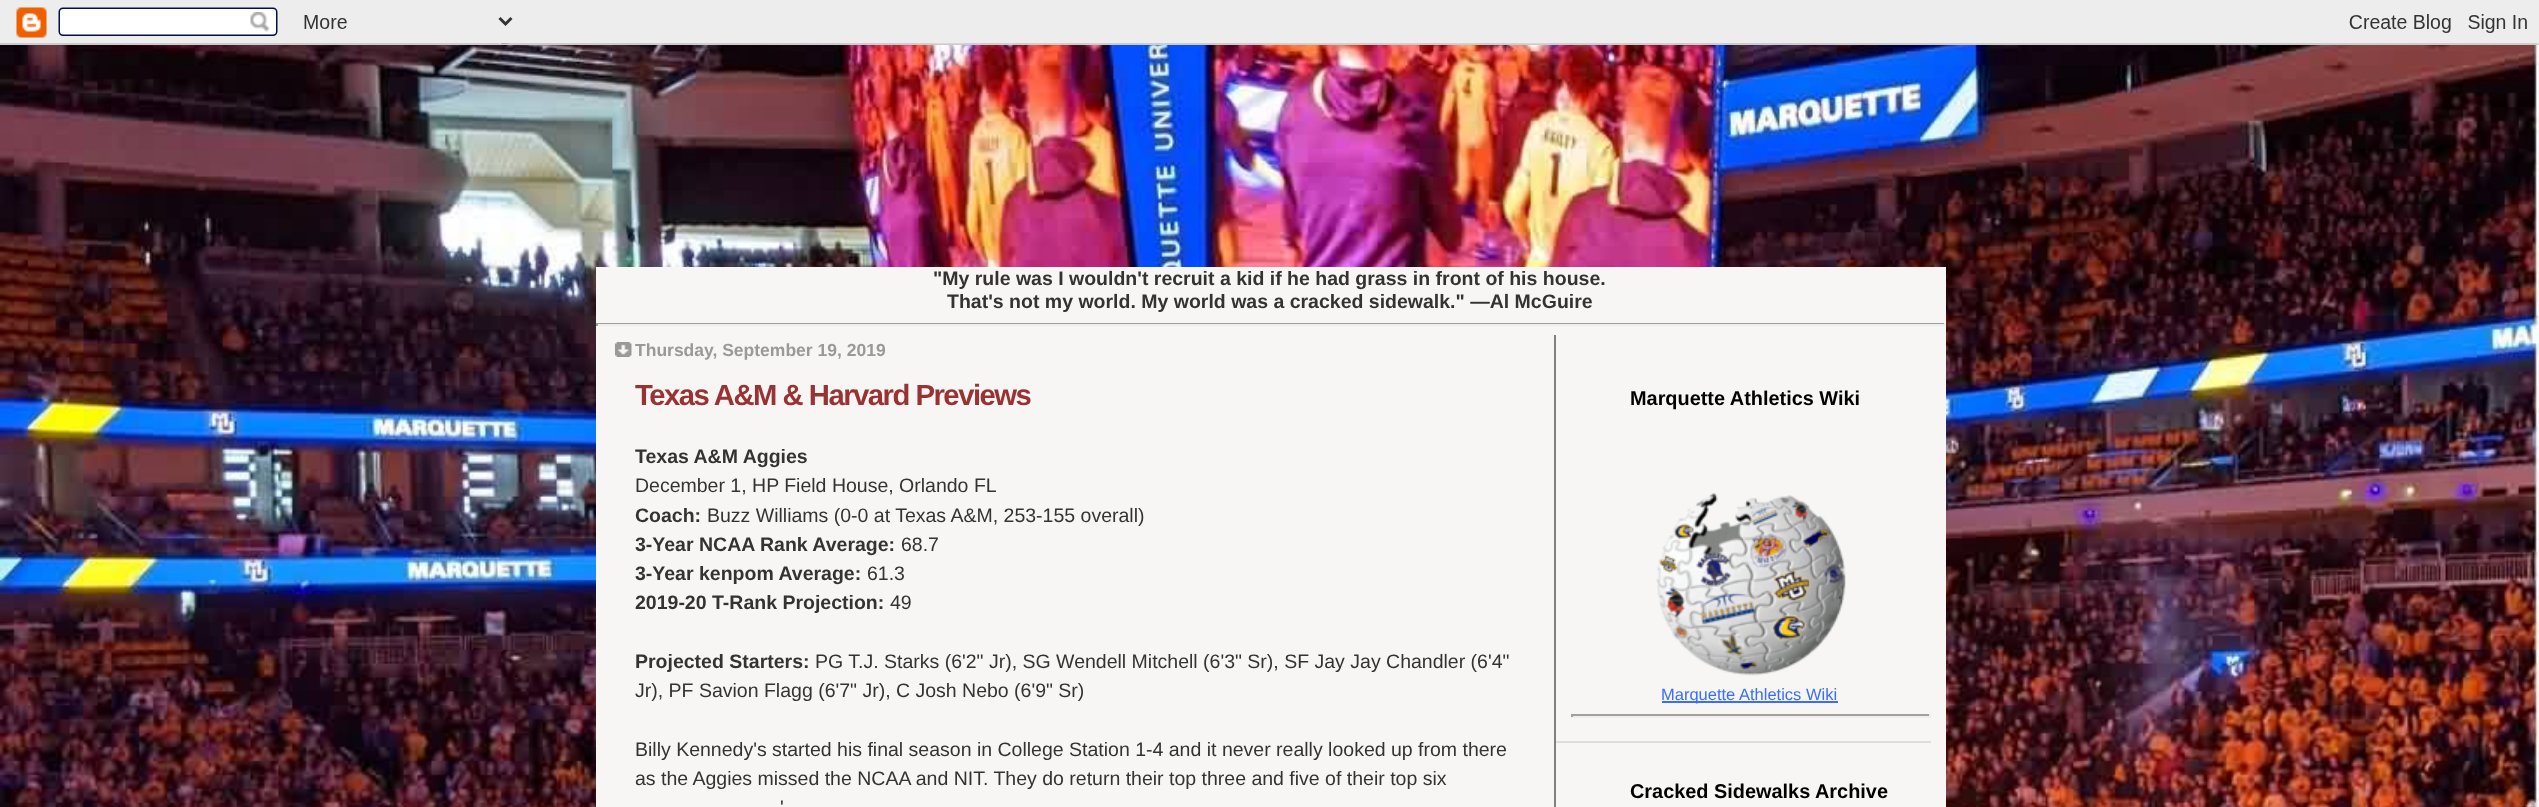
<svg xmlns="http://www.w3.org/2000/svg" width="2539" height="807">
	<rect width="100%" height="100%" fill="#FFFFFF" />
	<image x="0" y="43" width="2539" height="764" href="assets/img1.png" />
	<image x="0" y="0" width="2539" height="45" href="assets/img2.png" />
	<rect x="596" y="267" width="1350" height="540" fill="#F7F6F4" />
	<g font-family="Liberation Sans" font-size="19.5" font-weight="700" fill="#333333">
		<text x="933" y="285">"My rule was I wouldn't recruit a kid if he had grass in front of his house.</text>
		<text x="947" y="308">That's not my world. My world was a cracked sidewalk." —Al McGuire</text>
	</g>
	<rect x="596" y="323" width="1350" height="1" fill="#9F9F9F" />
	<rect x="1944" y="323" width="2" height="3" fill="#EEEEEE" />
	<rect x="596" y="324" width="1350" height="2" fill="#EEEEEE" />
	<rect x="596" y="323" width="2" height="3" fill="#9F9F9F" />
	<image x="615" y="342" width="17" height="15" href="assets/img3.png" />
	<text x="635" y="356" font-family="Liberation Sans" font-size="17.5" font-weight="700" fill="#999999">Thursday, September 19, 2019</text>
	<text x="635" y="405" font-family="Liberation Sans" font-size="29.25" font-weight="700" letter-spacing="-1.5" fill="#993333">Texas A&amp;M &amp; Harvard Previews</text>
	<text x="635" y="463" font-family="Liberation Sans" font-size="19.5" font-weight="700" fill="#333333">Texas A&amp;M Aggies</text>
	<text x="635" y="492" font-family="Liberation Sans" font-size="19.5" fill="#333333">December 1, HP Field House, Orlando FL</text>
	<text x="635" y="522" font-family="Liberation Sans" font-size="19.5" font-weight="700" fill="#333333">Coach:</text>
	<text x="707" y="522" font-family="Liberation Sans" font-size="19.5" fill="#333333">Buzz Williams (0-0 at Texas A&amp;M, 253-155 overall)</text>
	<text x="635" y="551" font-family="Liberation Sans" font-size="19.5" font-weight="700" fill="#333333">3-Year NCAA Rank Average:</text>
	<text x="901" y="551" font-family="Liberation Sans" font-size="19.5" fill="#333333">68.7</text>
	<text x="635" y="580" font-family="Liberation Sans" font-size="19.5" font-weight="700" fill="#333333">3-Year kenpom Average:</text>
	<text x="867" y="580" font-family="Liberation Sans" font-size="19.5" fill="#333333">61.3</text>
	<text x="635" y="609" font-family="Liberation Sans" font-size="19.5" font-weight="700" fill="#333333">2019-20 T-Rank Projection:</text>
	<text x="890" y="609" font-family="Liberation Sans" font-size="19.5" fill="#333333">49</text>
	<text x="635" y="668" font-family="Liberation Sans" font-size="19.5" font-weight="700" fill="#333333">Projected Starters:</text>
	<g font-family="Liberation Sans" font-size="19.5" fill="#333333">
		<text x="815" y="668">PG T.J. Starks (6'2" Jr), SG Wendell Mitchell (6'3" Sr), SF Jay Jay Chandler (6'4"</text>
		<text x="635" y="697">Jr), PF Savion Flagg (6'7" Jr), C Josh Nebo (6'9" Sr)</text>
		<text x="635" y="756">Billy Kennedy's started his final season in College Station 1-4 and it never really looked up from there</text>
		<text x="635" y="785">as the Aggies missed the NCAA and NIT. They do return their top three and five of their top six</text>
		<text x="780" y="814">'</text>
	</g>
	<rect x="1554" y="335" width="2" height="472" fill="#808080" />
	<rect x="1556" y="741" width="375" height="2" fill="#DDDDDD" />
	<text x="1630" y="405" font-family="Liberation Sans" font-size="19.9" font-weight="700" fill="#000000">Marquette Athletics Wiki</text>
	<image x="1656" y="493" width="190" height="183" href="assets/img4.png" />
	<rect x="1662" y="701" width="176" height="2" fill="#386DFF" />
	<text x="1661" y="700" font-family="Liberation Sans" font-size="16.5" fill="#386DFF">Marquette Athletics Wiki</text>
	<rect x="1571" y="714" width="360" height="2" fill="#9F9F9F" />
	<rect x="1929" y="714" width="2" height="3" fill="#EEEEEE" />
	<rect x="1571" y="716" width="360" height="2" fill="#EEEEEE" />
	<rect x="1571" y="714" width="2" height="3" fill="#9F9F9F" />
	<text x="1630" y="798" font-family="Liberation Sans" font-size="19.9" font-weight="700" fill="#000000">Cracked Sidewalks Archive</text>
</svg>
